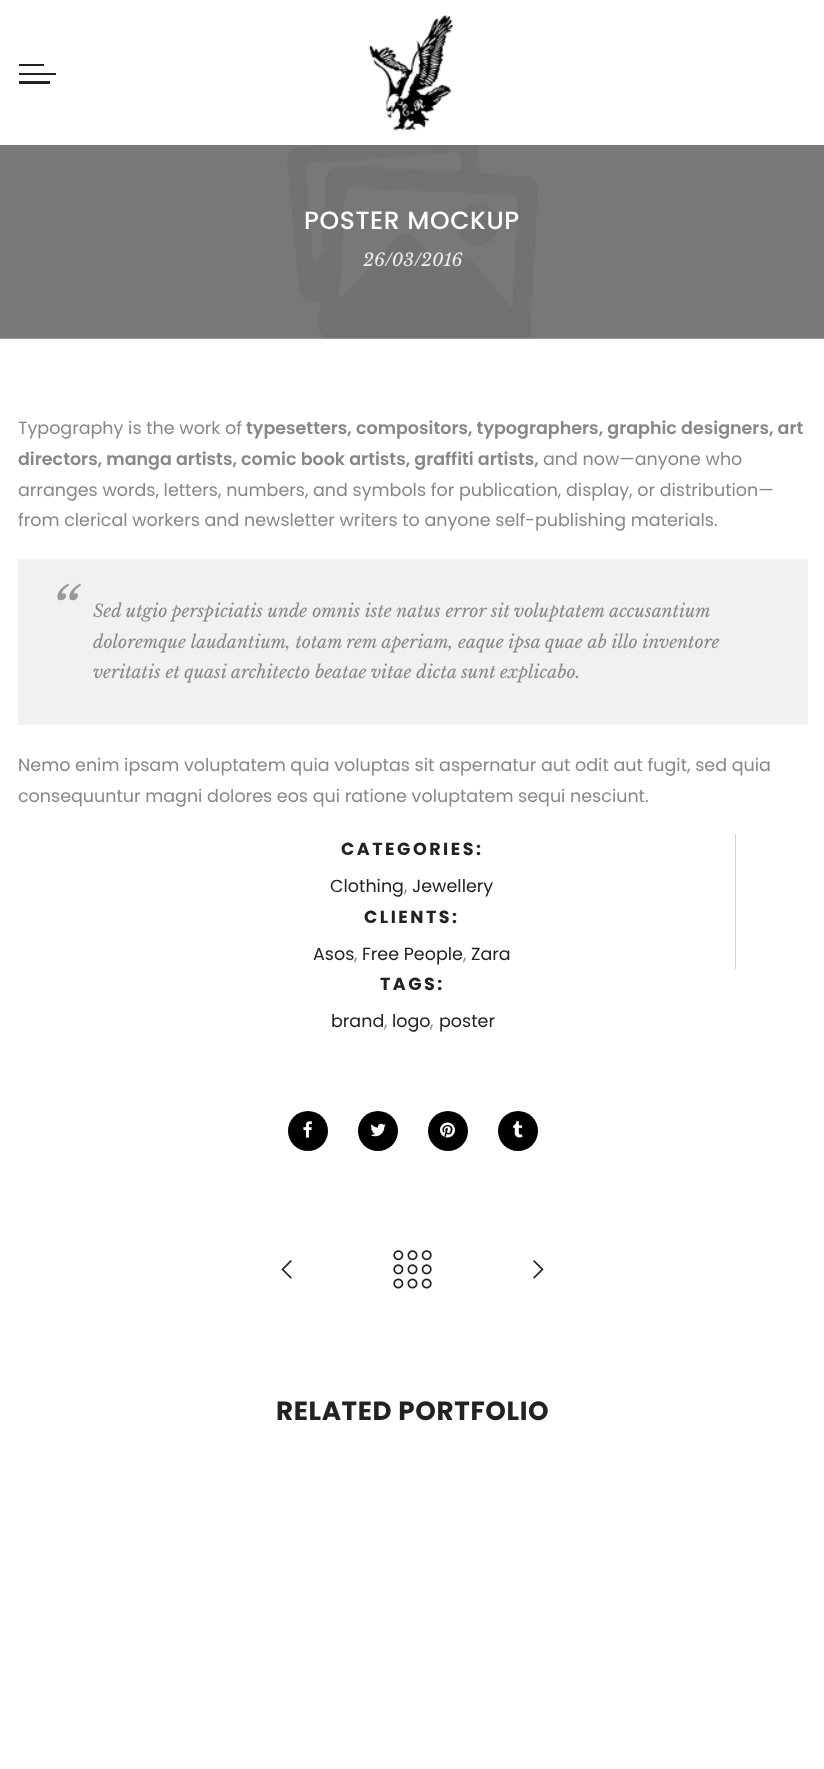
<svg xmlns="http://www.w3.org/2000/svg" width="824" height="1769">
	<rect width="100%" height="100%" fill="#FFFFFF" />
	<rect x="19" y="64" width="25" height="2" fill="#222222" />
	<rect x="19" y="73" width="37" height="2" fill="#222222" />
	<rect x="19" y="81" width="31" height="3" fill="#222222" />
	<image x="368" y="15" width="85" height="116" href="assets/img1.png" />
	<image x="0" y="145" width="824" height="194" href="assets/img2.png" />
	<text x="304" y="229" font-family="Poppins" font-size="25" font-weight="500" letter-spacing="0.6" fill="#FFFFFF">POSTER MOCKUP</text>
	<text x="363" y="266" font-family="Libre Baskerville" font-size="17.5" font-style="italic" fill="#EDEDED">26/03/2016</text>
	<text x="18" y="434" font-family="Poppins" font-size="17.5" fill="#878787">Typography is the work of</text>
	<g font-family="Poppins" font-size="17.5" font-weight="600" fill="#878787">
		<text x="246" y="434">typesetters, compositors, typographers, graphic designers, art</text>
		<text x="18" y="465">directors, manga artists, comic book artists, graffiti artists,</text>
	</g>
	<g font-family="Poppins" font-size="17.5" fill="#878787">
		<text x="543" y="465">and now—anyone who</text>
		<text x="18" y="496">arranges words, letters, numbers, and symbols for publication, display, or distribution—</text>
		<text x="18" y="526">from clerical workers and newsletter writers to anyone self-publishing materials.</text>
	</g>
	<rect x="18" y="559" width="790" height="166" fill="#F1F1F1" />
	<text x="49" y="635" font-family="Libre Baskerville" font-size="62" font-style="italic" fill="#999999">“</text>
	<g font-family="Libre Baskerville" font-size="17.5" font-style="italic" fill="#878787">
		<text x="93" y="617">Sed utgio perspiciatis unde omnis iste natus error sit voluptatem accusantium</text>
		<text x="93" y="648">doloremque laudantium, totam rem aperiam, eaque ipsa quae ab illo inventore</text>
		<text x="93" y="678">veritatis et quasi architecto beatae vitae dicta sunt explicabo.</text>
	</g>
	<g font-family="Poppins" font-size="17.5" fill="#878787">
		<text x="18" y="771">Nemo enim ipsam voluptatem quia voluptas sit aspernatur aut odit aut fugit, sed quia</text>
		<text x="18" y="802">consequuntur magni dolores eos qui ratione voluptatem sequi nesciunt.</text>
	</g>
	<rect x="735" y="834" width="1" height="135" fill="#D3D3D3" />
	<text x="341" y="855" font-family="Poppins" font-size="17.5" font-weight="700" letter-spacing="2.5" fill="#222222">CATEGORIES:</text>
	<text x="330" y="892" font-family="Poppins" font-size="17.5" fill="#222222">Clothing</text>
	<text x="404" y="892" font-family="Poppins" font-size="17.5" fill="#878787">,</text>
	<text x="412" y="892" font-family="Poppins" font-size="17.5" fill="#222222">Jewellery</text>
	<text x="364" y="923" font-family="Poppins" font-size="17.5" font-weight="700" letter-spacing="2.5" fill="#222222">CLIENTS:</text>
	<text x="313" y="960" font-family="Poppins" font-size="17.5" fill="#222222">Asos</text>
	<text x="354" y="960" font-family="Poppins" font-size="17.5" fill="#878787">,</text>
	<text x="362" y="960" font-family="Poppins" font-size="17.5" fill="#222222">Free People</text>
	<text x="463" y="960" font-family="Poppins" font-size="17.5" fill="#878787">,</text>
	<text x="471" y="960" font-family="Poppins" font-size="17.5" fill="#222222">Zara</text>
	<text x="380" y="990" font-family="Poppins" font-size="17.5" font-weight="700" letter-spacing="2.5" fill="#222222">TAGS:</text>
	<text x="331" y="1027" font-family="Poppins" font-size="17.5" fill="#222222">brand</text>
	<text x="384" y="1027" font-family="Poppins" font-size="17.5" fill="#878787">,</text>
	<text x="392" y="1027" font-family="Poppins" font-size="17.5" fill="#222222">logo</text>
	<text x="430" y="1027" font-family="Poppins" font-size="17.5" fill="#878787">,</text>
	<text x="439" y="1027" font-family="Poppins" font-size="17.5" fill="#222222">poster</text>
	<circle cx="308" cy="1131" r="20" fill="#000000" />
	<image x="303" y="1121" width="9" height="17" href="assets/img3.png" />
	<circle cx="378" cy="1131" r="20" fill="#000000" />
	<image x="370" y="1123" width="16" height="14" href="assets/img4.png" />
	<circle cx="448" cy="1131" r="20" fill="#000000" />
	<image x="440" y="1122" width="15" height="16" href="assets/img5.png" />
	<circle cx="518" cy="1131" r="20" fill="#000000" />
	<image x="513" y="1121" width="10" height="17" href="assets/img6.png" />
	<image x="281" y="1260" width="11" height="19" href="assets/img7.png" />
	<image x="393" y="1250" width="39" height="39" href="assets/img8.png" />
	<image x="533" y="1260" width="11" height="19" href="assets/img9.png" />
	<text x="276" y="1420" font-family="Poppins" font-size="26.25" font-weight="700" letter-spacing="0.6" fill="#222222">RELATED PORTFOLIO</text>
</svg>
